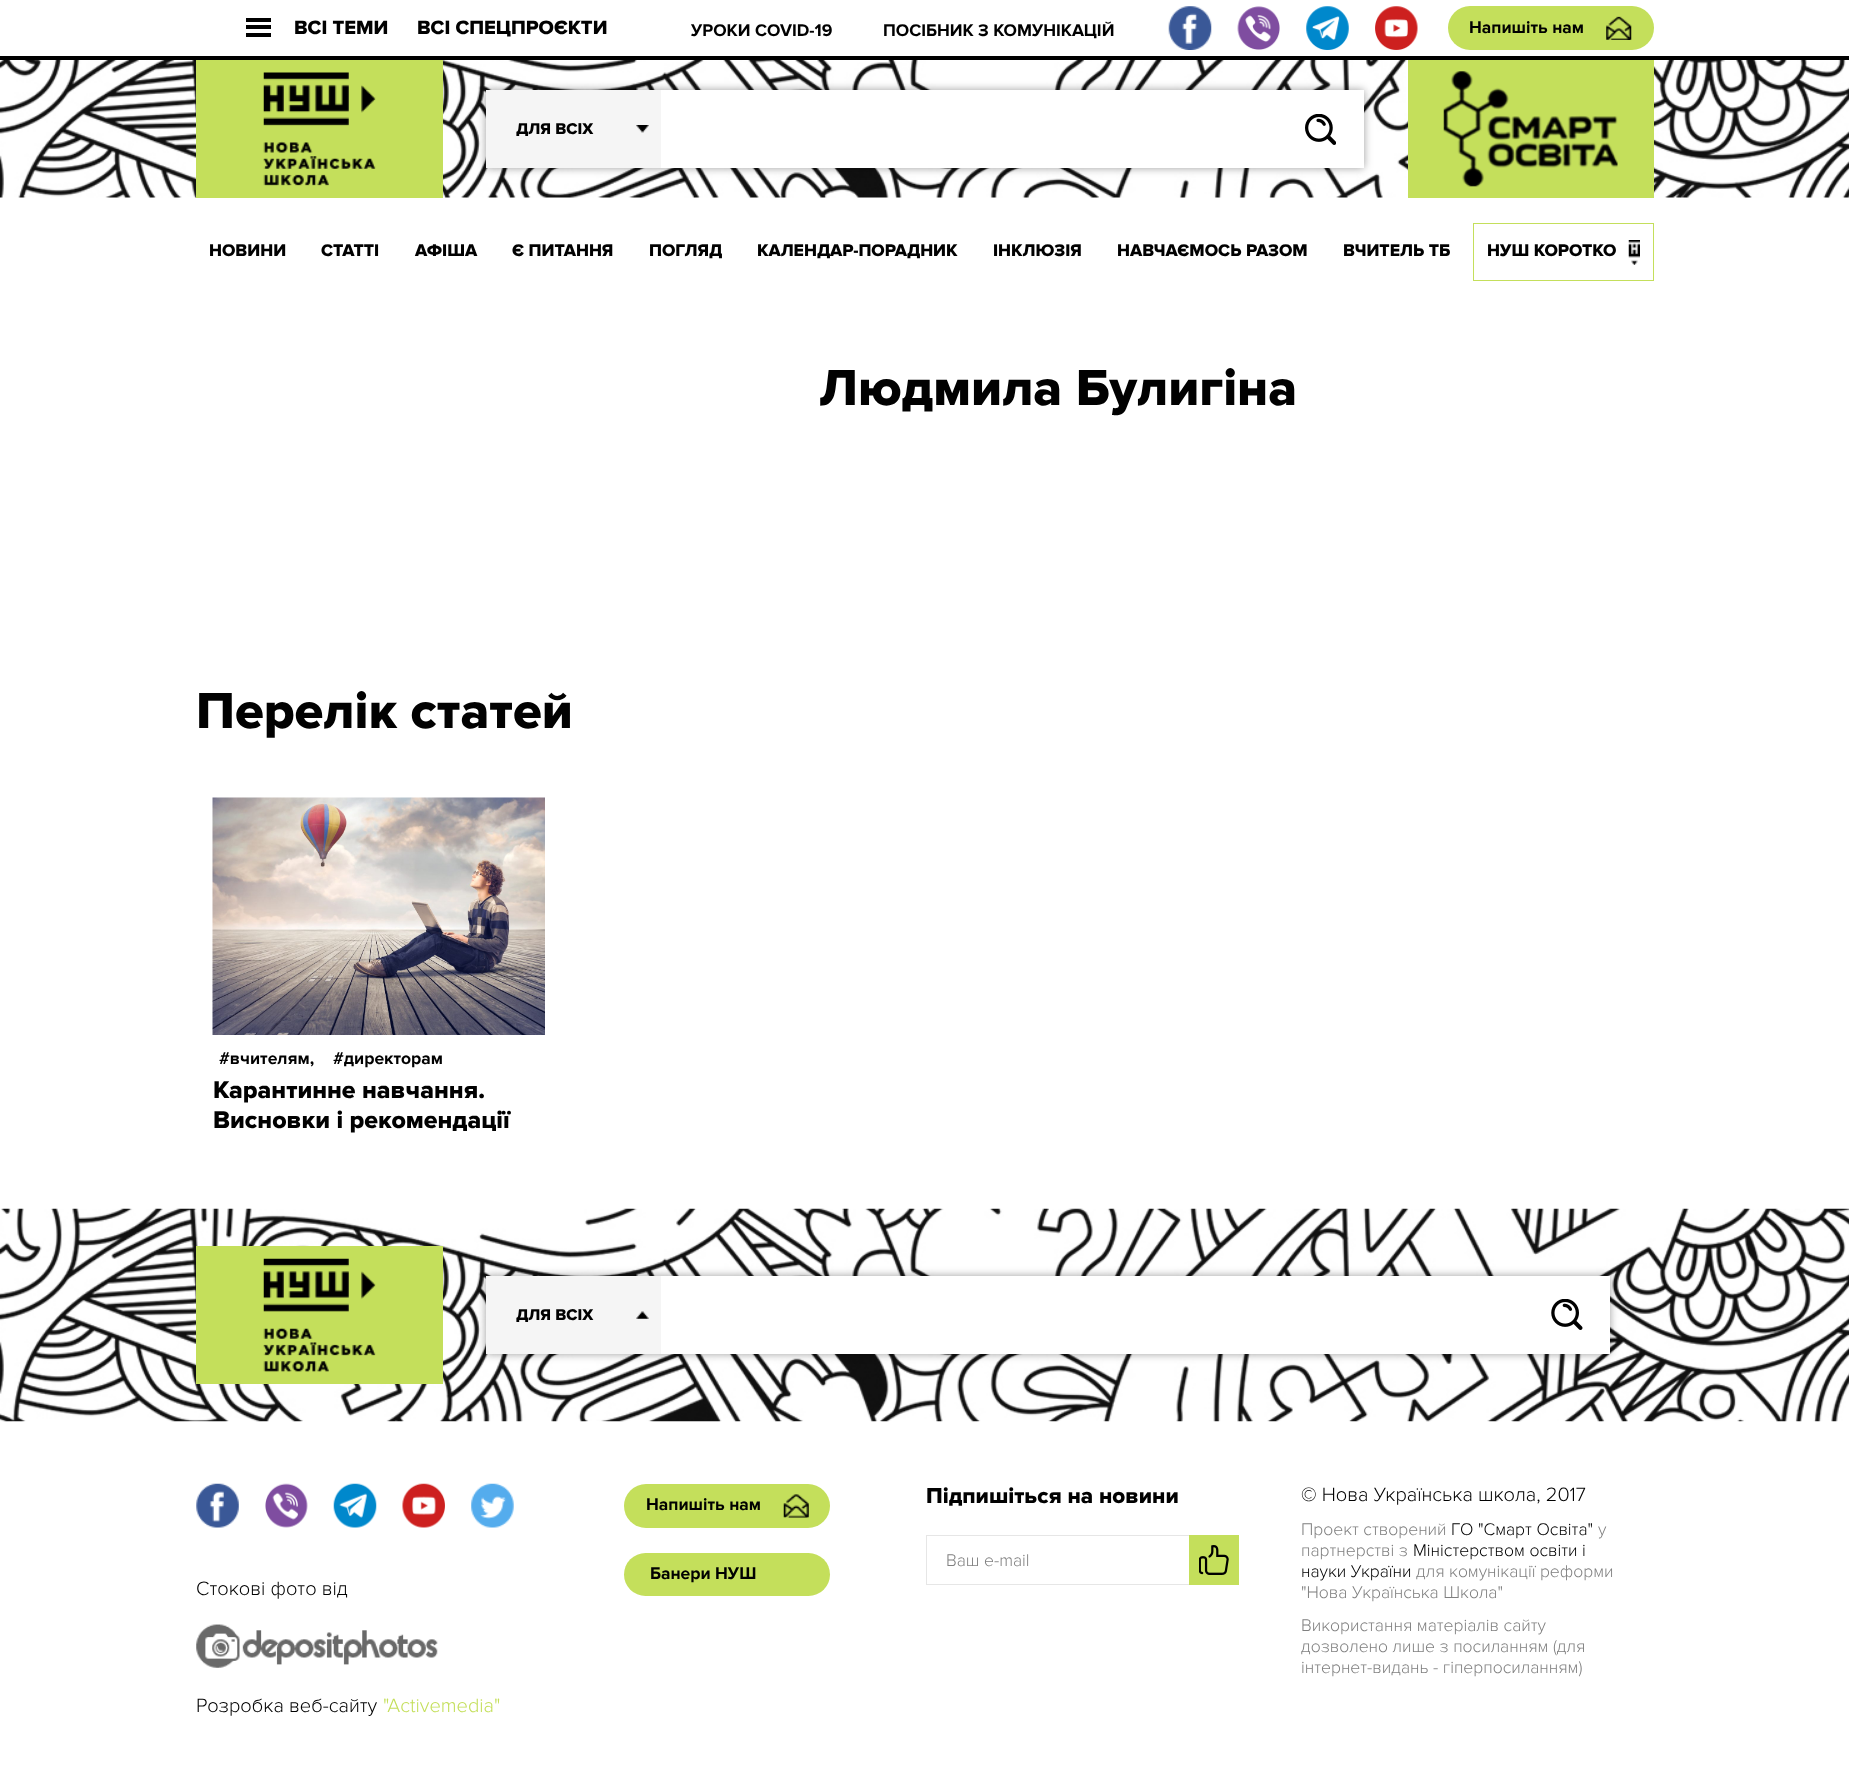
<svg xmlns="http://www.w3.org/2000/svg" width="1849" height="1767">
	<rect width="100%" height="100%" fill="#FFFFFF" />
	<rect x="0" y="56" width="1849" height="4" fill="#000000" />
	<rect x="246" y="18" width="25" height="4" fill="#000000" />
	<rect x="246" y="25" width="25" height="4" fill="#000000" />
	<rect x="246" y="33" width="25" height="4" fill="#000000" />
	<g font-family="Proxima Nova" font-size="20" font-weight="800" fill="#010101">
		<text x="294" y="34">ВСІ ТЕМИ</text>
		<text x="417" y="34">ВСІ СПЕЦПРОЄКТИ</text>
	</g>
	<g font-family="Proxima Nova" font-size="17.5" font-weight="700" fill="#010101">
		<text x="691" y="36">УРОКИ COVID-19</text>
		<text x="883" y="36">ПОСІБНИК З КОМУНІКАЦІЙ</text>
	</g>
	<image x="1168" y="6" width="44" height="44" href="assets/img1.png" />
	<image x="1237" y="6" width="43" height="44" href="assets/img2.png" />
	<image x="1306" y="6" width="43" height="44" href="assets/img3.png" />
	<image x="1375" y="6" width="43" height="44" href="assets/img4.png" />
	<rect x="1448" y="6" width="206" height="44" rx="22" fill="#C4DF5B" />
	<text x="1469" y="33" font-family="Proxima Nova" font-size="17.5" font-weight="700" fill="#010101">Напишіть нам</text>
	<image x="1606" y="16" width="26" height="24" href="assets/img5.png" />
	<image x="0" y="60" width="1849" height="138" href="assets/img6.png" />
	<rect x="196" y="60" width="247" height="138" fill="#C4DF5B" />
	<image x="263" y="72" width="113" height="114" href="assets/img7.png" />
	<rect x="486" y="90" width="878" height="78" fill="#000000" fill-opacity="0.39" filter="blur(4px)" />
	<rect x="661" y="90" width="703" height="78" fill="#FFFFFF" />
	<rect x="486" y="90" width="175" height="78" fill="#F5F5F5" />
	<text x="516" y="134" font-family="Proxima Nova" font-size="16.25" font-weight="800" fill="#010101">ДЛЯ ВСІХ</text>
	<image x="636" y="125" width="13" height="8" href="assets/img8.png" />
	<image x="1305" y="114" width="31" height="31" href="assets/img9.png" />
	<rect x="1408" y="60" width="246" height="138" fill="#C4DF5B" />
	<image x="1443" y="71" width="175" height="116" href="assets/img10.png" />
	<g font-family="Proxima Nova" font-size="17.5" font-weight="800" fill="#010101">
		<text x="209" y="256">НОВИНИ</text>
		<text x="321" y="256">СТАТТІ</text>
		<text x="415" y="256">АФІША</text>
		<text x="512" y="256">Є ПИТАННЯ</text>
		<text x="649" y="256">ПОГЛЯД</text>
		<text x="757" y="256">КАЛЕНДАР-ПОРАДНИК</text>
		<text x="993" y="256">ІНКЛЮЗІЯ</text>
		<text x="1117" y="256">НАВЧАЄМОСЬ РАЗОМ</text>
		<text x="1343" y="256">ВЧИТЕЛЬ ТБ</text>
	</g>
	<rect x="1473.5" y="223.5" width="180" height="57" fill="none" stroke="#C4DF5B" />
	<text x="1487" y="256" font-family="Proxima Nova" font-size="17.5" font-weight="800" fill="#010101">НУШ КОРОТКО</text>
	<image x="1628" y="240" width="12" height="25" href="assets/img11.png" />
	<g font-family="Proxima Nova" font-size="52.5" font-weight="800" fill="#010101">
		<text x="819" y="405">Людмила Булигіна</text>
		<text x="196" y="728">Перелік статей</text>
	</g>
	<image x="212" y="797" width="333" height="238" href="assets/img12.png" />
	<g font-family="Proxima Nova" font-size="17.5" font-weight="700" fill="#010101">
		<text x="219" y="1064">#вчителям,</text>
		<text x="333" y="1064">#директорам</text>
	</g>
	<g font-family="Proxima Nova" font-size="25" font-weight="800" fill="#010101">
		<text x="213" y="1098">Карантинне навчання.</text>
		<text x="213" y="1128">Висновки і рекомендації</text>
	</g>
	<image x="0" y="1208" width="1849" height="214" href="assets/img13.png" />
	<rect x="196" y="1246" width="247" height="138" fill="#C4DF5B" />
	<image x="263" y="1258" width="113" height="114" href="assets/img14.png" />
	<rect x="486" y="1276" width="1124" height="78" fill="#000000" fill-opacity="0.39" filter="blur(4px)" />
	<rect x="661" y="1276" width="949" height="78" fill="#FFFFFF" />
	<rect x="486" y="1276" width="175" height="78" fill="#F5F5F5" />
	<text x="516" y="1320" font-family="Proxima Nova" font-size="16.25" font-weight="800" fill="#010101">ДЛЯ ВСІХ</text>
	<image x="636" y="1311" width="13" height="8" href="assets/img15.png" />
	<image x="1551" y="1299" width="32" height="31" href="assets/img16.png" />
	<rect x="624" y="1484" width="206" height="44" rx="22" fill="#C4DF5B" />
	<text x="646" y="1510" font-family="Proxima Nova" font-size="17.5" font-weight="700" fill="#010101">Напишіть нам</text>
	<image x="783" y="1494" width="26" height="24" href="assets/img17.png" />
	<rect x="624" y="1553" width="206" height="43" rx="21.5" fill="#C4DF5B" />
	<text x="650" y="1579" font-family="Proxima Nova" font-size="17.5" font-weight="700" fill="#010101">Банери НУШ</text>
	<text x="926" y="1503" font-family="Proxima Nova" font-size="22.5" font-weight="800" fill="#010101">Підпишіться на новини</text>
	<rect x="926" y="1535" width="263" height="1" fill="#E6E6E6" />
	<rect x="926" y="1584" width="263" height="1" fill="#E6E6E6" />
	<rect x="926" y="1535" width="1" height="50" fill="#E6E6E6" />
	<text x="946" y="1566" font-family="Proxima Nova" font-size="17.5" font-weight="300" fill="#808080">Ваш e-mail</text>
	<rect x="1189" y="1535" width="50" height="50" fill="#C4DF5B" />
	<image x="1199" y="1545" width="30" height="30" href="assets/img18.png" />
	<text x="1301" y="1501" font-family="Proxima Nova" font-size="20" font-weight="300" fill="#010101">© Нова Українська школа, 2017</text>
	<text x="1301" y="1535" font-family="Proxima Nova" font-size="17.5" font-weight="300" fill="#808080">Проект створений</text>
	<text x="1451" y="1535" font-family="Proxima Nova" font-size="17.5" font-weight="300" fill="#010101">ГО "Смарт Освіта"</text>
	<g font-family="Proxima Nova" font-size="17.5" font-weight="300" fill="#808080">
		<text x="1598" y="1535">у</text>
		<text x="1301" y="1556">партнерстві з</text>
	</g>
	<g font-family="Proxima Nova" font-size="17.5" font-weight="300" fill="#010101">
		<text x="1413" y="1556">Міністерством освіти і</text>
		<text x="1301" y="1577">науки України</text>
	</g>
	<g font-family="Proxima Nova" font-size="17.5" font-weight="300" fill="#808080">
		<text x="1416" y="1577">для комунікації реформи</text>
		<text x="1301" y="1598">"Нова Українська Школа"</text>
		<text x="1301" y="1631">Використання матеріалів сайту</text>
		<text x="1301" y="1652">дозволено лише з посиланням (для</text>
		<text x="1301" y="1673">інтернет-видань - гіперпосиланням)</text>
	</g>
	<image x="196" y="1483" width="43" height="45" href="assets/img19.png" />
	<image x="265" y="1483" width="43" height="45" href="assets/img20.png" />
	<image x="333" y="1483" width="44" height="45" href="assets/img21.png" />
	<image x="402" y="1483" width="43" height="45" href="assets/img22.png" />
	<image x="471" y="1483" width="43" height="45" href="assets/img23.png" />
	<text x="196" y="1595" font-family="Proxima Nova" font-size="20" font-weight="300" fill="#010101">Стокові фото від</text>
	<image x="196" y="1624" width="242" height="44" href="assets/img24.png" />
	<text x="196" y="1712" font-family="Proxima Nova" font-size="20" font-weight="300" fill="#010101">Розробка веб-сайту</text>
	<text x="383" y="1712" font-family="Proxima Nova" font-size="20" font-weight="300" fill="#C4DF5B">"Activemedia"</text>
</svg>
